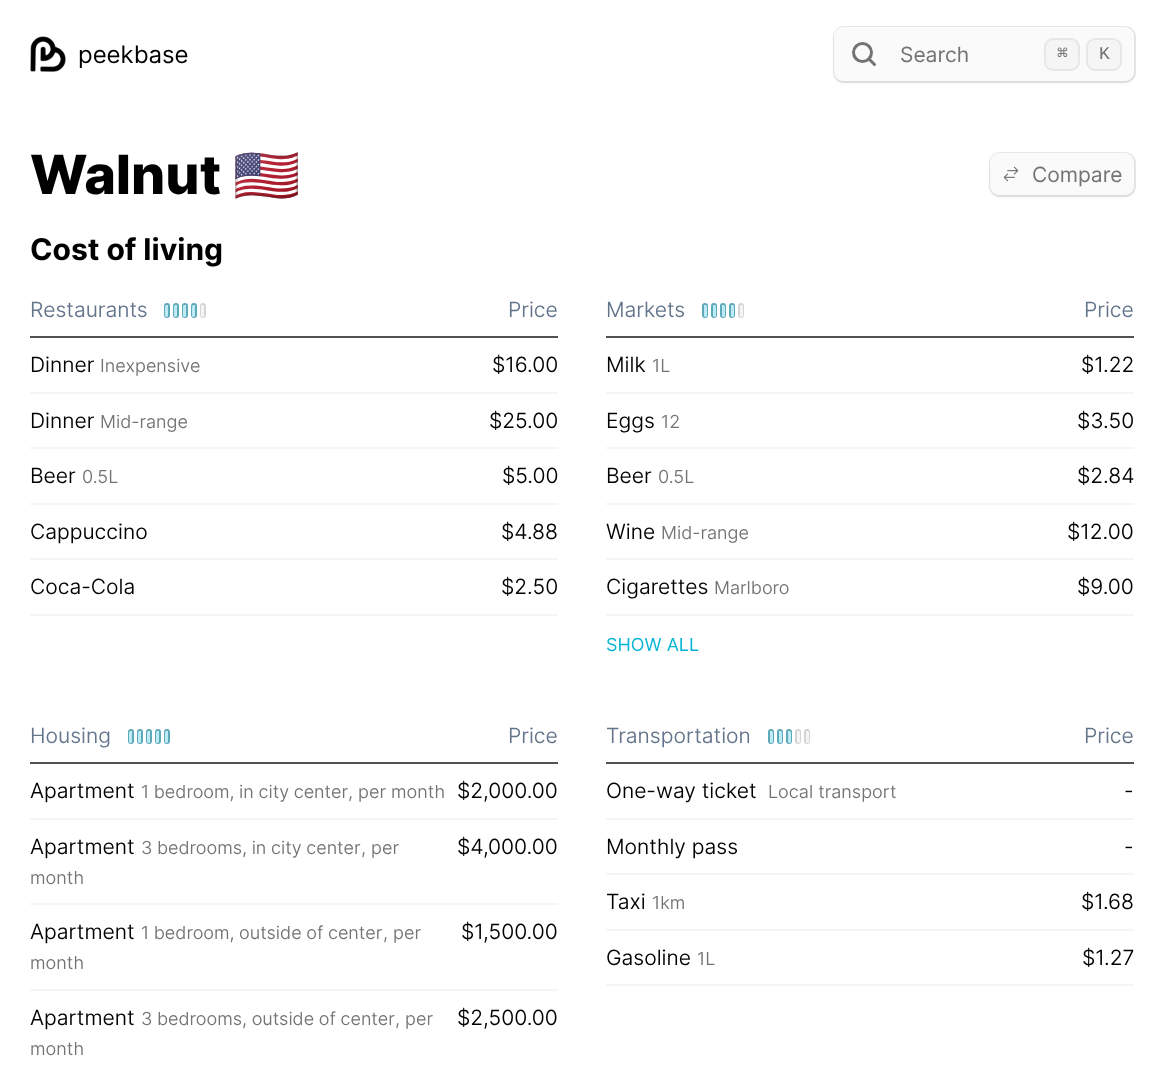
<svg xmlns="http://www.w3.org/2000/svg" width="1164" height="1066">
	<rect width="100%" height="100%" fill="#FFFFFF" />
	<image x="30" y="36" width="36" height="36" href="assets/img1.png" />
	<text x="78" y="63" font-family="Inter" font-size="24" fill="#000000">peekbase</text>
	<rect x="834" y="29" width="300" height="54" rx="9" fill="#000000" fill-opacity="0.05" filter="blur(1.5px)" />
	<rect x="834" y="27" width="301" height="55" rx="10" fill="none" stroke="#171717" stroke-opacity="0.1" stroke-width="2" />
	<rect x="834" y="27" width="300" height="54" rx="9" fill="#FAFAFA" />
	<path d="M874.5 64.5L869 59" fill="none" stroke="#737373" stroke-width="3" stroke-linecap="round" stroke-linejoin="round" />
	<circle cx="862.5" cy="52.5" r="9" fill="none" stroke="#737373" stroke-width="3" />
	<text x="900" y="62" font-family="Inter" font-size="21" fill="#737373">Search</text>
	<rect x="1045" y="39" width="34" height="31" rx="8" fill="#F5F5F5" stroke="#E5E7EB" stroke-width="2" />
	<text x="1057" y="59" font-family="DejaVu Sans Mono" font-size="18" fill="#737373">⌘</text>
	<rect x="1087" y="39" width="34" height="31" rx="8" fill="#F5F5F5" stroke="#E5E7EB" stroke-width="2" />
	<text x="1099" y="59" font-family="Liberation Mono" font-size="18" fill="#737373">K</text>
	<text x="30" y="194" font-family="Inter" font-size="54" font-weight="800" fill="#000000">Walnut</text>
	<text x="233" y="194" font-family="Noto Color Emoji" font-size="54" font-weight="700" fill="#000000">🇺🇸</text>
	<rect x="990" y="155" width="144" height="42" rx="9" fill="#000000" fill-opacity="0.05" filter="blur(1.5px)" />
	<rect x="990" y="153" width="145" height="43" rx="10" fill="none" stroke="#171717" stroke-opacity="0.1" stroke-width="2" />
	<rect x="990" y="153" width="144" height="42" rx="9" fill="#FAFAFA" />
	<image x="1003" y="166" width="16" height="16" href="assets/img2.png" />
	<text x="1032" y="182" font-family="Inter" font-size="21" fill="#737373">Compare</text>
	<text x="30" y="260" font-family="Inter" font-size="30" font-weight="700" fill="#000000">Cost of living</text>
	<rect x="30" y="336" width="528" height="2" fill="#525252" />
	<text x="30" y="317" font-family="Inter" font-size="21" font-weight="300" fill="#64748B">Restaurants</text>
	<rect x="165" y="304" width="4" height="13" rx="2" fill="none" stroke="#5DA8B9" stroke-width="2" />
	<rect x="165" y="305" width="3" height="12" rx="1.5" fill="#BEEAF4" />
	<rect x="174" y="304" width="4" height="13" rx="2" fill="none" stroke="#5DA8B9" stroke-width="2" />
	<rect x="174" y="305" width="3" height="12" rx="1.5" fill="#BEEAF4" />
	<rect x="183" y="304" width="4" height="13" rx="2" fill="none" stroke="#5DA8B9" stroke-width="2" />
	<rect x="183" y="305" width="3" height="12" rx="1.5" fill="#BEEAF4" />
	<rect x="192" y="304" width="4" height="13" rx="2" fill="none" stroke="#5DA8B9" stroke-width="2" />
	<rect x="192" y="305" width="3" height="12" rx="1.5" fill="#BEEAF4" />
	<rect x="201" y="304" width="4" height="13" rx="2" fill="none" stroke="#D4D4D4" stroke-width="2" />
	<rect x="201" y="305" width="3" height="12" rx="1.5" fill="#F5F5F5" />
	<text x="508" y="317" font-family="Inter" font-size="21" font-weight="300" fill="#64748B">Price</text>
	<rect x="30" y="392" width="528" height="2" fill="#F5F5F5" />
	<text x="30" y="372" font-family="Inter" font-size="21" font-weight="300" fill="#000000">Dinner</text>
	<text x="100" y="372" font-family="Inter" font-size="18" font-weight="300" fill="#737373">Inexpensive</text>
	<text x="492" y="372" font-family="Inter" font-size="21" font-weight="300" fill="#000000">$16.00</text>
	<rect x="30" y="447" width="528" height="2" fill="#F5F5F5" />
	<text x="30" y="428" font-family="Inter" font-size="21" font-weight="300" fill="#000000">Dinner</text>
	<text x="100" y="428" font-family="Inter" font-size="18" font-weight="300" fill="#737373">Mid-range</text>
	<text x="489" y="428" font-family="Inter" font-size="21" font-weight="300" fill="#000000">$25.00</text>
	<rect x="30" y="503" width="528" height="2" fill="#F5F5F5" />
	<text x="30" y="483" font-family="Inter" font-size="21" font-weight="300" fill="#000000">Beer</text>
	<text x="82" y="483" font-family="Inter" font-size="18" font-weight="300" fill="#737373">0.5L</text>
	<text x="502" y="483" font-family="Inter" font-size="21" font-weight="300" fill="#000000">$5.00</text>
	<rect x="30" y="558" width="528" height="2" fill="#F5F5F5" />
	<g font-family="Inter" font-size="21" font-weight="300" fill="#000000">
		<text x="30" y="539">Cappuccino</text>
		<text x="501" y="539">$4.88</text>
	</g>
	<rect x="30" y="614" width="528" height="2" fill="#F5F5F5" />
	<g font-family="Inter" font-size="21" font-weight="300" fill="#000000">
		<text x="30" y="594">Coca-Cola</text>
		<text x="501" y="594">$2.50</text>
	</g>
	<rect x="606" y="336" width="528" height="2" fill="#525252" />
	<text x="606" y="317" font-family="Inter" font-size="21" font-weight="300" fill="#64748B">Markets</text>
	<rect x="703" y="304" width="4" height="13" rx="2" fill="none" stroke="#5DA8B9" stroke-width="2" />
	<rect x="704" y="305" width="3" height="12" rx="1.5" fill="#BEEAF4" />
	<rect x="712" y="304" width="4" height="13" rx="2" fill="none" stroke="#5DA8B9" stroke-width="2" />
	<rect x="713" y="305" width="3" height="12" rx="1.5" fill="#BEEAF4" />
	<rect x="721" y="304" width="4" height="13" rx="2" fill="none" stroke="#5DA8B9" stroke-width="2" />
	<rect x="722" y="305" width="3" height="12" rx="1.5" fill="#BEEAF4" />
	<rect x="730" y="304" width="4" height="13" rx="2" fill="none" stroke="#5DA8B9" stroke-width="2" />
	<rect x="731" y="305" width="3" height="12" rx="1.5" fill="#BEEAF4" />
	<rect x="739" y="304" width="4" height="13" rx="2" fill="none" stroke="#D4D4D4" stroke-width="2" />
	<rect x="740" y="305" width="3" height="12" rx="1.5" fill="#F5F5F5" />
	<text x="1084" y="317" font-family="Inter" font-size="21" font-weight="300" fill="#64748B">Price</text>
	<rect x="606" y="392" width="528" height="2" fill="#F5F5F5" />
	<text x="606" y="372" font-family="Inter" font-size="21" font-weight="300" fill="#000000">Milk</text>
	<text x="652" y="372" font-family="Inter" font-size="18" font-weight="300" fill="#737373">1L</text>
	<text x="1081" y="372" font-family="Inter" font-size="21" font-weight="300" fill="#000000">$1.22</text>
	<rect x="606" y="447" width="528" height="2" fill="#F5F5F5" />
	<text x="606" y="428" font-family="Inter" font-size="21" font-weight="300" fill="#000000">Eggs</text>
	<text x="661" y="428" font-family="Inter" font-size="18" font-weight="300" fill="#737373">12</text>
	<text x="1077" y="428" font-family="Inter" font-size="21" font-weight="300" fill="#000000">$3.50</text>
	<rect x="606" y="503" width="528" height="2" fill="#F5F5F5" />
	<text x="606" y="483" font-family="Inter" font-size="21" font-weight="300" fill="#000000">Beer</text>
	<text x="658" y="483" font-family="Inter" font-size="18" font-weight="300" fill="#737373">0.5L</text>
	<text x="1077" y="483" font-family="Inter" font-size="21" font-weight="300" fill="#000000">$2.84</text>
	<rect x="606" y="558" width="528" height="2" fill="#F5F5F5" />
	<text x="606" y="539" font-family="Inter" font-size="21" font-weight="300" fill="#000000">Wine</text>
	<text x="661" y="539" font-family="Inter" font-size="18" font-weight="300" fill="#737373">Mid-range</text>
	<text x="1067" y="539" font-family="Inter" font-size="21" font-weight="300" fill="#000000">$12.00</text>
	<rect x="606" y="614" width="528" height="2" fill="#F5F5F5" />
	<text x="606" y="594" font-family="Inter" font-size="21" font-weight="300" fill="#000000">Cigarettes</text>
	<text x="714" y="594" font-family="Inter" font-size="18" font-weight="300" fill="#737373">Marlboro</text>
	<text x="1077" y="594" font-family="Inter" font-size="21" font-weight="300" fill="#000000">$9.00</text>
	<text x="606" y="651" font-family="Inter" font-size="18" fill="#06B6D4">SHOW ALL</text>
	<rect x="30" y="762" width="528" height="2" fill="#525252" />
	<text x="30" y="743" font-family="Inter" font-size="21" font-weight="300" fill="#64748B">Housing</text>
	<rect x="129" y="730" width="4" height="13" rx="2" fill="none" stroke="#5DA8B9" stroke-width="2" />
	<rect x="129" y="731" width="3" height="12" rx="1.5" fill="#BEEAF4" />
	<rect x="138" y="730" width="4" height="13" rx="2" fill="none" stroke="#5DA8B9" stroke-width="2" />
	<rect x="138" y="731" width="3" height="12" rx="1.5" fill="#BEEAF4" />
	<rect x="147" y="730" width="4" height="13" rx="2" fill="none" stroke="#5DA8B9" stroke-width="2" />
	<rect x="147" y="731" width="3" height="12" rx="1.5" fill="#BEEAF4" />
	<rect x="156" y="730" width="4" height="13" rx="2" fill="none" stroke="#5DA8B9" stroke-width="2" />
	<rect x="156" y="731" width="3" height="12" rx="1.5" fill="#BEEAF4" />
	<rect x="165" y="730" width="4" height="13" rx="2" fill="none" stroke="#5DA8B9" stroke-width="2" />
	<rect x="165" y="731" width="3" height="12" rx="1.5" fill="#BEEAF4" />
	<text x="508" y="743" font-family="Inter" font-size="21" font-weight="300" fill="#64748B">Price</text>
	<rect x="30" y="818" width="528" height="2" fill="#F5F5F5" />
	<text x="30" y="798" font-family="Inter" font-size="21" font-weight="300" fill="#000000">Apartment</text>
	<g font-family="Inter" font-size="18" font-weight="300" fill="#737373">
		<text x="141" y="798" word-spacing="-0.5">1 bedroom, in city center</text>
		<text x="348" y="798">, per month</text>
	</g>
	<text x="457" y="798" font-family="Inter" font-size="21" font-weight="300" fill="#000000">$2,000.00</text>
	<rect x="30" y="903" width="528" height="2" fill="#F5F5F5" />
	<text x="30" y="854" font-family="Inter" font-size="21" font-weight="300" fill="#000000">Apartment</text>
	<g font-family="Inter" font-size="18" font-weight="300" fill="#737373">
		<text x="141" y="854" word-spacing="-0.5">3 bedrooms, in city center</text>
		<text x="361" y="854">, per</text>
		<text x="30" y="884">month</text>
	</g>
	<text x="457" y="854" font-family="Inter" font-size="21" font-weight="300" fill="#000000">$4,000.00</text>
	<rect x="30" y="989" width="528" height="2" fill="#F5F5F5" />
	<text x="30" y="939" font-family="Inter" font-size="21" font-weight="300" fill="#000000">Apartment</text>
	<g font-family="Inter" font-size="18" font-weight="300" fill="#737373">
		<text x="141" y="939" word-spacing="-0.5">1 bedroom, outside of center</text>
		<text x="383" y="939">, per</text>
		<text x="30" y="969">month</text>
	</g>
	<g font-family="Inter" font-size="21" font-weight="300" fill="#000000">
		<text x="461" y="939">$1,500.00</text>
		<text x="30" y="1025">Apartment</text>
	</g>
	<g font-family="Inter" font-size="18" font-weight="300" fill="#737373">
		<text x="141" y="1025" word-spacing="-0.5">3 bedrooms, outside of center</text>
		<text x="395" y="1025">, per</text>
		<text x="30" y="1055">month</text>
	</g>
	<text x="457" y="1025" font-family="Inter" font-size="21" font-weight="300" fill="#000000">$2,500.00</text>
	<rect x="606" y="762" width="528" height="2" fill="#525252" />
	<text x="606" y="743" font-family="Inter" font-size="21" font-weight="300" fill="#64748B">Transportation</text>
	<rect x="769" y="730" width="4" height="13" rx="2" fill="none" stroke="#5DA8B9" stroke-width="2" />
	<rect x="770" y="731" width="3" height="12" rx="1.5" fill="#BEEAF4" />
	<rect x="778" y="730" width="4" height="13" rx="2" fill="none" stroke="#5DA8B9" stroke-width="2" />
	<rect x="779" y="731" width="3" height="12" rx="1.5" fill="#BEEAF4" />
	<rect x="787" y="730" width="4" height="13" rx="2" fill="none" stroke="#5DA8B9" stroke-width="2" />
	<rect x="788" y="731" width="3" height="12" rx="1.5" fill="#BEEAF4" />
	<rect x="796" y="730" width="4" height="13" rx="2" fill="none" stroke="#D4D4D4" stroke-width="2" />
	<rect x="797" y="731" width="3" height="12" rx="1.5" fill="#F5F5F5" />
	<rect x="805" y="730" width="4" height="13" rx="2" fill="none" stroke="#D4D4D4" stroke-width="2" />
	<rect x="806" y="731" width="3" height="12" rx="1.5" fill="#F5F5F5" />
	<text x="1084" y="743" font-family="Inter" font-size="21" font-weight="300" fill="#64748B">Price</text>
	<rect x="606" y="818" width="528" height="2" fill="#F5F5F5" />
	<text x="606" y="798" font-family="Inter" font-size="21" font-weight="300" fill="#000000">One-way ticket</text>
	<text x="768" y="798" font-family="Inter" font-size="18" font-weight="300" fill="#737373">Local transport</text>
	<text x="1124" y="798" font-family="Inter" font-size="21" font-weight="300" fill="#000000">-</text>
	<rect x="606" y="873" width="528" height="2" fill="#F5F5F5" />
	<g font-family="Inter" font-size="21" font-weight="300" fill="#000000">
		<text x="606" y="854">Monthly pass</text>
		<text x="1124" y="854">-</text>
	</g>
	<rect x="606" y="929" width="528" height="2" fill="#F5F5F5" />
	<text x="606" y="909" font-family="Inter" font-size="21" font-weight="300" fill="#000000">Taxi</text>
	<text x="652" y="909" font-family="Inter" font-size="18" font-weight="300" fill="#737373">1km</text>
	<text x="1081" y="909" font-family="Inter" font-size="21" font-weight="300" fill="#000000">$1.68</text>
	<rect x="606" y="984" width="528" height="2" fill="#F5F5F5" />
	<text x="606" y="965" font-family="Inter" font-size="21" font-weight="300" fill="#000000">Gasoline</text>
	<text x="697" y="965" font-family="Inter" font-size="18" font-weight="300" fill="#737373">1L</text>
	<text x="1082" y="965" font-family="Inter" font-size="21" font-weight="300" fill="#000000">$1.27</text>
</svg>
